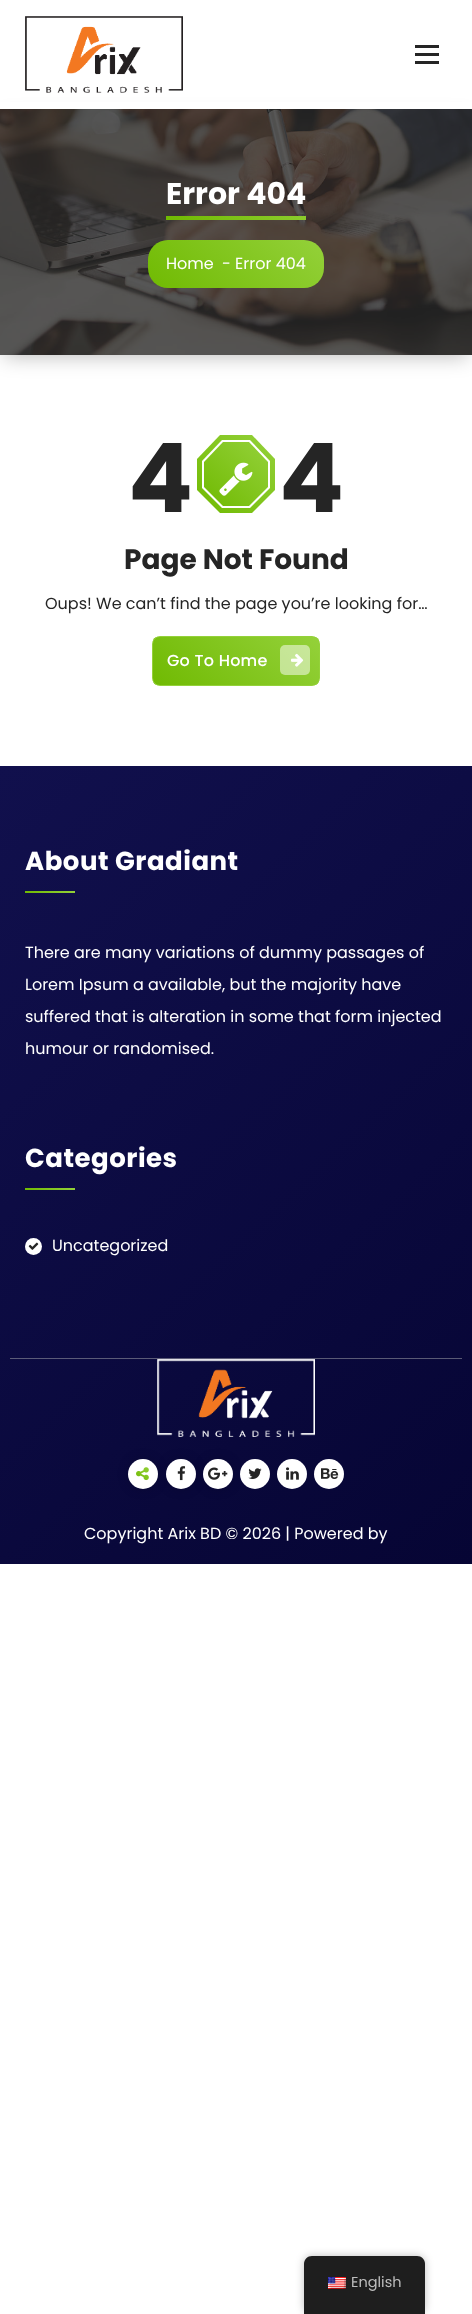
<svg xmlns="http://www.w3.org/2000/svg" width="472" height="2314">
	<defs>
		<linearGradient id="g1" gradientUnits="userSpaceOnUse" x1="289" y1="207" x2="183" y2="321"><stop offset="0" stop-color="#94D13A" /><stop offset="1" stop-color="#70BA02" /></linearGradient>
		<linearGradient id="g2" gradientUnits="userSpaceOnUse" x1="274" y1="434" x2="198" y2="514"><stop offset="0" stop-color="#94D13A" /><stop offset="1" stop-color="#70BA02" /></linearGradient>
		<linearGradient id="g3" gradientUnits="userSpaceOnUse" x1="267" y1="441" x2="205" y2="507"><stop offset="0" stop-color="#94D13A" /><stop offset="1" stop-color="#70BA02" /></linearGradient>
		<clipPath id="clip1"><rect x="152" y="636" width="168" height="50" rx="8" /></clipPath>
		<linearGradient id="g4" gradientUnits="userSpaceOnUse" x1="287" y1="607" x2="185" y2="715"><stop offset="0" stop-color="#94D13A" /><stop offset="1" stop-color="#70BA02" /></linearGradient>
		<linearGradient id="g5" gradientUnits="userSpaceOnUse" x1="-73" y1="834" x2="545" y2="1496"><stop offset="0" stop-color="#11104D" /><stop offset="1" stop-color="#060534" /></linearGradient>
		<linearGradient id="g6" gradientUnits="userSpaceOnUse" x1="-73" y1="834" x2="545" y2="1496"><stop offset="0" stop-color="#5E5E7F" /><stop offset="1" stop-color="#585872" /></linearGradient>
		<linearGradient id="g7" gradientUnits="userSpaceOnUse" x1="62" y1="879" x2="38" y2="905"><stop offset="0" stop-color="#94D13A" /><stop offset="1" stop-color="#70BA02" /></linearGradient>
		<linearGradient id="g8" gradientUnits="userSpaceOnUse" x1="62" y1="1176" x2="38" y2="1202"><stop offset="0" stop-color="#94D13A" /><stop offset="1" stop-color="#70BA02" /></linearGradient>
	</defs>
	<rect width="100%" height="100%" fill="#FFFFFF" />
	<rect x="4" y="119" width="464" height="238" fill="#000000" fill-opacity="0.25" filter="blur(10px)" />
	<rect x="0" y="102" width="472" height="7" fill="#FFFFFF" />
	<image x="25" y="16" width="158" height="77" href="assets/img1.png" />
	<rect x="415" y="45" width="24" height="3" fill="#252525" />
	<rect x="415" y="53" width="24" height="3" fill="#252525" />
	<rect x="415" y="61" width="24" height="3" fill="#252525" />
	<image x="0" y="109" width="472" height="246" href="assets/img2.png" />
	<image x="166" y="216" width="140" height="4" href="assets/img3.png" />
	<text x="166" y="204" font-family="Poppins" font-size="30" font-weight="700" fill="#FFFFFF">Error 404</text>
	<rect x="148" y="240" width="176" height="48" rx="20" fill="url(#g1)" />
	<g font-family="Poppins" font-size="16" fill="#FFFFFF">
		<text x="166" y="269">Home</text>
		<text x="222" y="269">- Error 404</text>
	</g>
	<text x="128" y="512" font-family="Poppins" font-size="96" font-weight="700" fill="#252525">4</text>
	<path d="M220 435L197 459V490L220 513H252L275 490V459L252 435Z" fill="url(#g2)" />
	<path d="M222 440L202 461V488L222 508H250L270 488V461L250 440Z" fill="#FFFFFF" />
	<path d="M223 442L204 462V487L223 506H249L268 487V462L249 442Z" fill="url(#g3)" />
	<image x="219" y="462" width="34" height="34" href="assets/img4.png" />
	<text x="279" y="512" font-family="Poppins" font-size="96" font-weight="700" fill="#252525">4</text>
	<text x="124" y="569" font-family="Poppins" font-size="28" font-weight="700" fill="#252525">Page Not Found</text>
	<text x="45" y="609" font-family="Poppins" font-size="16" fill="#252525">Oups! We can’t find the page you’re looking for…</text>
	<g clip-path="url(#clip1)">
		<rect x="153" y="637" width="166" height="48" fill="url(#g4)" />
	</g>
	<rect x="152.5" y="636.5" width="167" height="49" rx="7.5" fill="none" stroke="#94D13A" />
	<text x="167" y="666" font-family="Poppins" font-size="16" font-weight="500" letter-spacing="0.25" fill="#FFFFFF">Go To Home</text>
	<rect x="280" y="645" width="30" height="30" rx="5" fill="#FFFFFF" fill-opacity="0.5" />
	<image x="291" y="653" width="13" height="14" href="assets/img5.png" />
	<rect x="0" y="766" width="472" height="798" fill="url(#g5)" />
	<rect x="10" y="1358" width="452" height="1" fill="url(#g6)" />
	<text x="25" y="870" font-family="Poppins" font-size="26" font-weight="700" letter-spacing="0.5" fill="#FFFFFF">About Gradiant</text>
	<rect x="25" y="891" width="50" height="2" fill="url(#g7)" />
	<g font-family="Poppins" font-size="16" fill="#FFFFFF">
		<text x="25" y="958">There are many variations of dummy passages of</text>
		<text x="25" y="990">Lorem Ipsum a available, but the majority have</text>
		<text x="25" y="1022">suffered that is alteration in some that form injected</text>
		<text x="25" y="1054">humour or randomised.</text>
	</g>
	<text x="25" y="1167" font-family="Poppins" font-size="26" font-weight="700" letter-spacing="0.5" fill="#FFFFFF">Categories</text>
	<rect x="25" y="1188" width="50" height="2" fill="url(#g8)" />
	<circle cx="33.5" cy="1246.5" r="8.5" fill="#FFFFFF" />
	<image x="28" y="1242" width="11" height="8" href="assets/img6.png" />
	<text x="52" y="1251" font-family="Poppins" font-size="16" fill="#FFFFFF">Uncategorized</text>
	<image x="157" y="1359" width="158" height="78" href="assets/img7.png" />
	<rect x="130" y="1461" width="26" height="26" rx="13" fill="#000000" fill-opacity="0.2" filter="blur(6.5px)" />
	<circle cx="143" cy="1474" r="15" fill="#FFFFFF" />
	<image x="136" y="1467" width="13" height="14" href="assets/img8.png" />
	<rect x="168" y="1461" width="26" height="26" rx="13" fill="#000000" fill-opacity="0.2" filter="blur(6.5px)" />
	<circle cx="181" cy="1474" r="15" fill="#FFFFFF" />
	<image x="177" y="1466" width="9" height="15" href="assets/img9.png" />
	<rect x="205" y="1461" width="26" height="26" rx="13" fill="#000000" fill-opacity="0.2" filter="blur(6.5px)" />
	<circle cx="218" cy="1474" r="15" fill="#FFFFFF" />
	<image x="208" y="1467" width="20" height="13" href="assets/img10.png" />
	<circle cx="255" cy="1474" r="15" fill="#FFFFFF" />
	<image x="248" y="1468" width="14" height="11" href="assets/img11.png" />
	<circle cx="292" cy="1474" r="15" fill="#FFFFFF" />
	<image x="286" y="1467" width="13" height="13" href="assets/img12.png" />
	<circle cx="329" cy="1474" r="15" fill="#FFFFFF" />
	<image x="321" y="1468" width="18" height="11" href="assets/img13.png" />
	<text x="84" y="1539" font-family="Poppins" font-size="16" fill="#FFFFFF">Copyright Arix BD © 2026 | Powered by</text>
	<rect x="304" y="2256" width="121" height="58" rx="8" fill="#000000" fill-opacity="0.25" filter="blur(4px)" />
	<path d="M312 2256H417C421.5 2256 425 2259.5 425 2264V2314H304V2264C304 2259.5 307.5 2256 312 2256Z" fill="#1E1E1E" />
	<image x="328" y="2277" width="18" height="12" href="assets/img14.png" />
	<text x="351" y="2287" font-family="Poppins" font-size="14.5" fill="#BDBDBD">English</text>
</svg>
